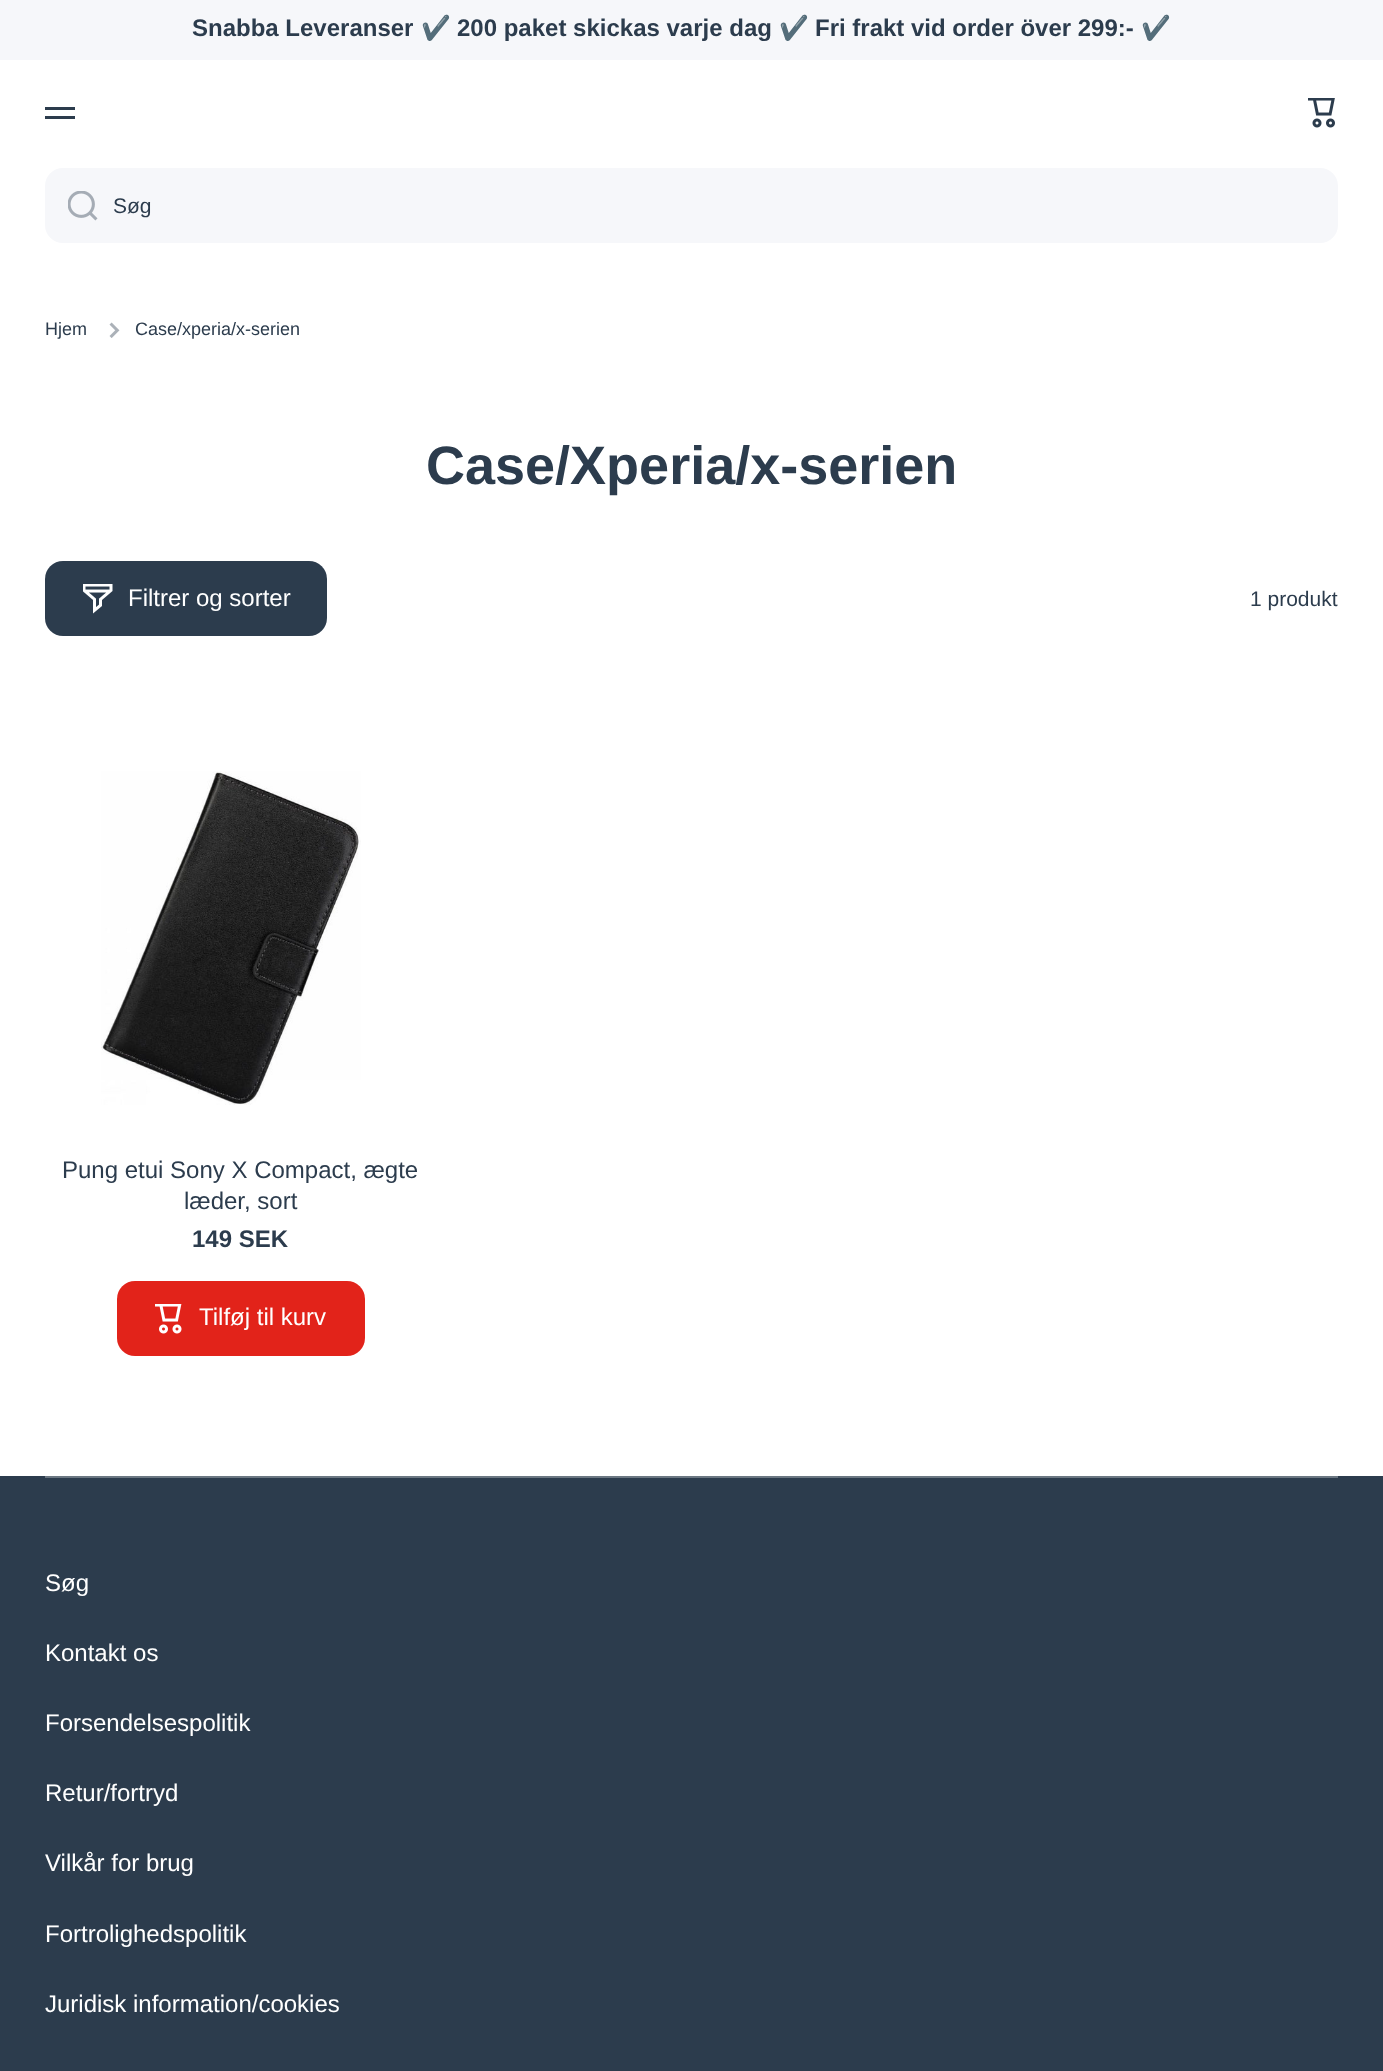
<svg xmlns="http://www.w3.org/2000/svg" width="1383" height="2071">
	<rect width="100%" height="100%" fill="#FFFFFF" />
	<rect x="0" y="0" width="1383" height="60" fill="#F6F7FA" />
	<text x="192" y="36" font-family="Liberation Sans" font-size="24" font-weight="700" fill="#2C3C4D">Snabba Leveranser</text>
	<text x="421" y="36" font-family="Noto Color Emoji" font-size="24" font-weight="700" fill="#2C3C4D">✔️</text>
	<text x="457" y="36" font-family="Liberation Sans" font-size="24" font-weight="700" fill="#2C3C4D">200 paket skickas varje dag</text>
	<text x="779" y="36" font-family="Noto Color Emoji" font-size="24" font-weight="700" fill="#2C3C4D">✔️</text>
	<text x="815" y="36" font-family="Liberation Sans" font-size="24" font-weight="700" fill="#2C3C4D">Fri frakt vid order över 299:-</text>
	<text x="1141" y="36" font-family="Noto Color Emoji" font-size="24" font-weight="700" fill="#2C3C4D">✔️</text>
	<rect x="45" y="107" width="30" height="3" fill="#2C3C4D" />
	<rect x="45" y="116" width="30" height="3" fill="#2C3C4D" />
	<image x="1308" y="98" width="27" height="30" href="assets/img1.png" />
	<rect x="45" y="168" width="1293" height="75" rx="18" fill="#F6F7FA" />
	<image x="68" y="191" width="30" height="30" href="assets/img2.png" />
	<text x="113" y="213" font-family="Liberation Sans" font-size="21" fill="#2C3C4D">Søg</text>
	<text x="45" y="335" font-family="Liberation Sans" font-size="18" fill="#2C3C4D">Hjem</text>
	<image x="109" y="322" width="11" height="16" href="assets/img3.png" />
	<text x="135" y="335" font-family="Liberation Sans" font-size="18" fill="#2C3C4D">Case/xperia/x-serien</text>
	<text x="426" y="484" font-family="Liberation Sans" font-size="54" font-weight="700" fill="#2C3C4D">Case/Xperia/x-serien</text>
	<rect x="45" y="561" width="282" height="75" rx="18" fill="#2C3C4D" />
	<image x="83" y="584" width="30" height="30" href="assets/img4.png" />
	<text x="128" y="606" font-family="Liberation Sans" font-size="24" fill="#FFFFFF">Filtrer og sorter</text>
	<text x="1250" y="606" font-family="Liberation Sans" font-size="21" fill="#2C3C4D">1 produkt</text>
	<image x="101" y="771" width="260" height="334" href="assets/img5.png" />
	<g font-family="Liberation Sans" font-size="24" fill="#2C3C4D">
		<text x="62" y="1178">Pung etui Sony X Compact, ægte</text>
		<text x="184" y="1209">læder, sort</text>
	</g>
	<text x="192" y="1247" font-family="Liberation Sans" font-size="24" font-weight="700" fill="#2C3C4D">149 SEK</text>
	<rect x="117" y="1281" width="248" height="75" rx="18" fill="#E2231A" />
	<image x="155" y="1304" width="27" height="30" href="assets/img6.png" />
	<text x="199" y="1325" font-family="Liberation Sans" font-size="24" fill="#FFFFFF">Tilføj til kurv</text>
	<rect x="0" y="1476" width="1383" height="595" fill="#2C3C4D" />
	<rect x="45" y="1476" width="1293" height="2" fill="#6B7782" />
	<g font-family="Liberation Sans" font-size="24" fill="#FFFFFF">
		<text x="45" y="1591">Søg</text>
		<text x="45" y="1661">Kontakt os</text>
		<text x="45" y="1731">Forsendelsespolitik</text>
		<text x="45" y="1801">Retur/fortryd</text>
		<text x="45" y="1871">Vilkår for brug</text>
		<text x="45" y="1942">Fortrolighedspolitik</text>
		<text x="45" y="2012">Juridisk information/cookies</text>
	</g>
</svg>
